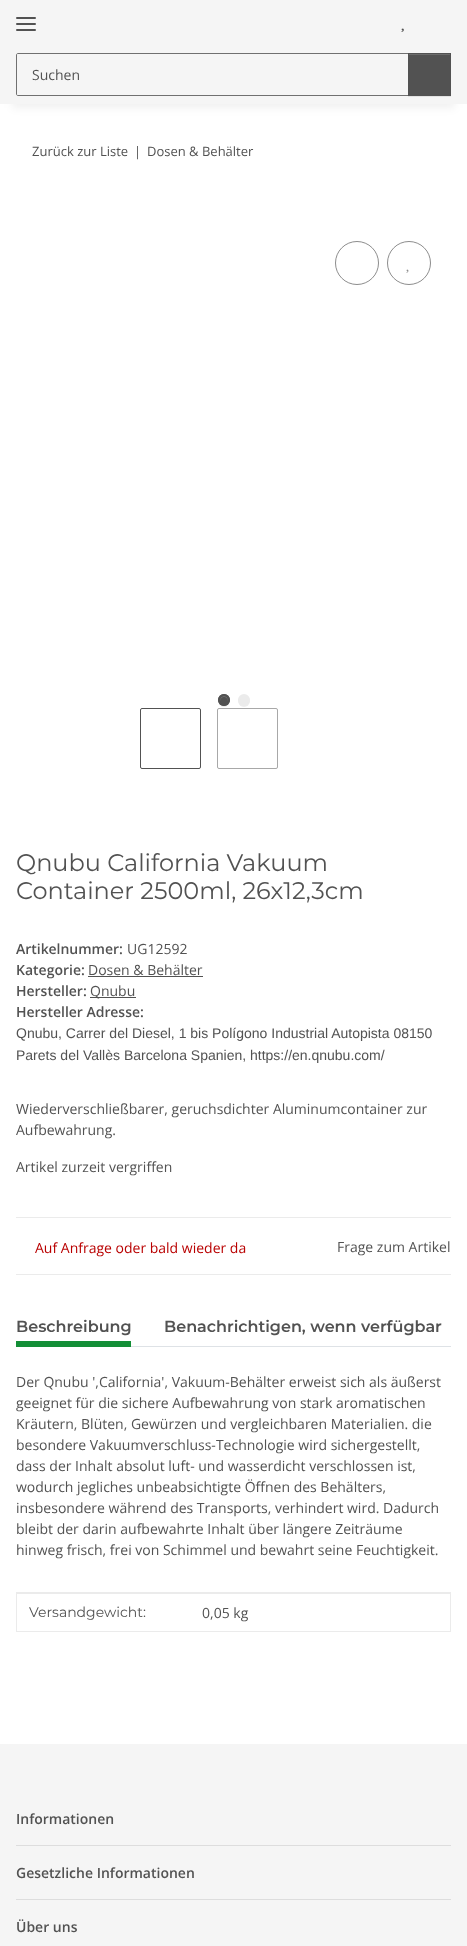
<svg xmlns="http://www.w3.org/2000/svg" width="467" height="1946">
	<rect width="100%" height="100%" fill="#FFFFFF" />
	<rect x="12" y="28" width="443" height="80" fill="#000000" fill-opacity="0.06" filter="blur(4.5px)" />
	<rect x="0" y="0" width="467" height="104" fill="#F5F5F5" />
	<rect x="16" y="23" width="20" height="2" rx="1" fill="#525252" />
	<rect x="16" y="17" width="20" height="2" rx="1" fill="#525252" />
	<rect x="16" y="29" width="20" height="2" rx="1" fill="#525252" />
	<image x="401" y="28" width="3" height="4" href="assets/img1.png" />
	<path d="M18 53.5H408.5V95.5H18C17 95.5 16.5 95 16.5 94V55C16.5 54 17 53.5 18 53.5Z" fill="none" stroke="#707070" />
	<text x="32" y="80" font-family="Open Sans" font-size="14" fill="#525252">Suchen</text>
	<rect x="408" y="54" width="43" height="43" fill="#000000" fill-opacity="0.07" filter="blur(0.5px)" />
	<rect x="408" y="53" width="43" height="43" fill="#525252" />
	<rect x="409" y="54" width="41" height="1" fill="#6C6C6C" />
	<g font-family="Open Sans" font-size="13" fill="#525252">
		<text x="32" y="156">Zurück zur Liste</text>
		<text x="134" y="156">|</text>
		<text x="147" y="156">Dosen &amp; Behälter</text>
	</g>
	<circle cx="357" cy="263" r="21.5" fill="none" stroke="#8D8D8D" />
	<circle cx="409" cy="263" r="21.5" fill="none" stroke="#8D8D8D" />
	<image x="406" y="269" width="3" height="4" href="assets/img2.png" />
	<rect x="218" y="695" width="12" height="12" rx="6" fill="#000000" fill-opacity="0.07" filter="blur(0.5px)" />
	<circle cx="224" cy="700" r="6" fill="#525252" />
	<path d="M224 697C226.5 697 228 699.5 227.5 701.5C228 700.5 228 699.5 227.5 698.5C225.5 693.5 218.5 697 220.5 701.5C220 699.5 221.5 697 224 697Z" fill="#6C6C6C" />
	<circle cx="224" cy="700" r="5" fill="none" stroke="#525252" stroke-width="2" />
	<rect x="238" y="695" width="12" height="12" rx="6" fill="#000000" fill-opacity="0.07" filter="blur(0.5px)" />
	<circle cx="244" cy="700" r="5" fill="#EBEBEB" stroke="#EBEBEB" stroke-width="2" />
	<rect x="140.5" y="708.5" width="60" height="60" rx="1.5" fill="none" stroke="#525252" />
	<rect x="217.5" y="708.5" width="60" height="60" rx="1.5" fill="none" stroke="#A8A8A8" />
	<g font-family="Montserrat" font-size="24" fill="#525252">
		<text x="16" y="871">Qnubu California Vakuum</text>
		<text x="16" y="899">Container 2500ml, 26x12,3cm</text>
	</g>
	<text x="16" y="954" font-family="Open Sans" font-size="14" font-weight="600" fill="#525252">Artikelnummer:</text>
	<text x="127" y="954" font-family="Open Sans" font-size="14" fill="#525252">UG12592</text>
	<text x="16" y="975" font-family="Open Sans" font-size="14" font-weight="600" fill="#525252">Kategorie:</text>
	<text x="88" y="975" font-family="Open Sans" font-size="14" fill="#525252">Dosen &amp; Behälter</text>
	<rect x="88" y="976" width="115" height="1" fill="#525252" />
	<text x="16" y="996" font-family="Open Sans" font-size="14" font-weight="600" fill="#525252">Hersteller:</text>
	<rect x="90" y="997" width="46" height="1" fill="#525252" />
	<text x="90" y="996" font-family="Open Sans" font-size="14" fill="#525252">Qnubu</text>
	<text x="16" y="1017" font-family="Open Sans" font-size="14" font-weight="600" fill="#525252">Hersteller Adresse:</text>
	<g font-family="Liberation Sans" font-size="14" fill="#525252">
		<text x="16" y="1038">Qnubu, Carrer del Diesel, 1 bis Polígono Industrial Autopista 08150</text>
		<text x="16" y="1060">Parets del Vallès Barcelona Spanien, https://en.qnubu.com/</text>
	</g>
	<g font-family="Open Sans" font-size="14" fill="#525252">
		<text x="16" y="1114">Wiederverschließbarer, geruchsdichter Aluminumcontainer zur</text>
		<text x="16" y="1135">Aufbewahrung.</text>
		<text x="16" y="1172">Artikel zurzeit vergriffen</text>
	</g>
	<rect x="16" y="1217" width="435" height="1" fill="#EBEBEB" />
	<rect x="16" y="1274" width="435" height="1" fill="#EBEBEB" />
	<text x="35" y="1253" font-family="Open Sans" font-size="14" fill="#B90000">Auf Anfrage oder bald wieder da</text>
	<text x="337" y="1252" font-family="Open Sans" font-size="14" fill="#525252">Frage zum Artikel</text>
	<rect x="131" y="1346" width="320" height="1" fill="#DEE2E6" />
	<text x="16" y="1332" font-family="Montserrat" font-size="16" font-weight="600" fill="#525252">Beschreibung</text>
	<rect x="16" y="1341" width="115" height="6" fill="#138E36" />
	<text x="164" y="1332" font-family="Montserrat" font-size="16" font-weight="600" fill="#525252">Benachrichtigen, wenn verfügbar</text>
	<g font-family="Open Sans" font-size="14" fill="#525252">
		<text x="16" y="1387">Der Qnubu ',California', Vakuum-Behälter erweist sich als äußerst</text>
		<text x="16" y="1408">geeignet für die sichere Aufbewahrung von stark aromatischen</text>
		<text x="16" y="1429">Kräutern, Blüten, Gewürzen und vergleichbaren Materialien. die</text>
		<text x="16" y="1450">besondere Vakuumverschluss-Technologie wird sichergestellt,</text>
		<text x="16" y="1471">dass der Inhalt absolut luft- und wasserdicht verschlossen ist,</text>
		<text x="16" y="1492">wodurch jegliches unbeabsichtigte Öffnen des Behälters,</text>
		<text x="16" y="1513">insbesondere während des Transports, verhindert wird. Dadurch</text>
		<text x="16" y="1534">bleibt der darin aufbewahrte Inhalt über längere Zeiträume</text>
		<text x="16" y="1555">hinweg frisch, frei von Schimmel und bewahrt seine Feuchtigkeit.</text>
	</g>
	<rect x="16" y="1592" width="435" height="2" fill="#EBEBEB" />
	<rect x="450" y="1593" width="1" height="39" fill="#EBEBEB" />
	<rect x="16" y="1631" width="435" height="1" fill="#EBEBEB" />
	<rect x="16" y="1593" width="1" height="39" fill="#EBEBEB" />
	<text x="29" y="1617" font-family="Montserrat" font-size="14" fill="#525252">Versandgewicht:</text>
	<text x="202" y="1618" font-family="Open Sans" font-size="14" fill="#525252">0,05 kg</text>
	<rect x="0" y="1744" width="467" height="202" fill="#F5F5F5" />
	<text x="16" y="1824" font-family="Open Sans" font-size="14" font-weight="600" fill="#525252">Informationen</text>
	<rect x="16" y="1845" width="435" height="1" fill="#DDDDDD" />
	<text x="16" y="1878" font-family="Open Sans" font-size="14" font-weight="600" fill="#525252">Gesetzliche Informationen</text>
	<rect x="16" y="1899" width="435" height="1" fill="#DDDDDD" />
	<text x="16" y="1932" font-family="Open Sans" font-size="14" font-weight="600" fill="#525252">Über uns</text>
</svg>
